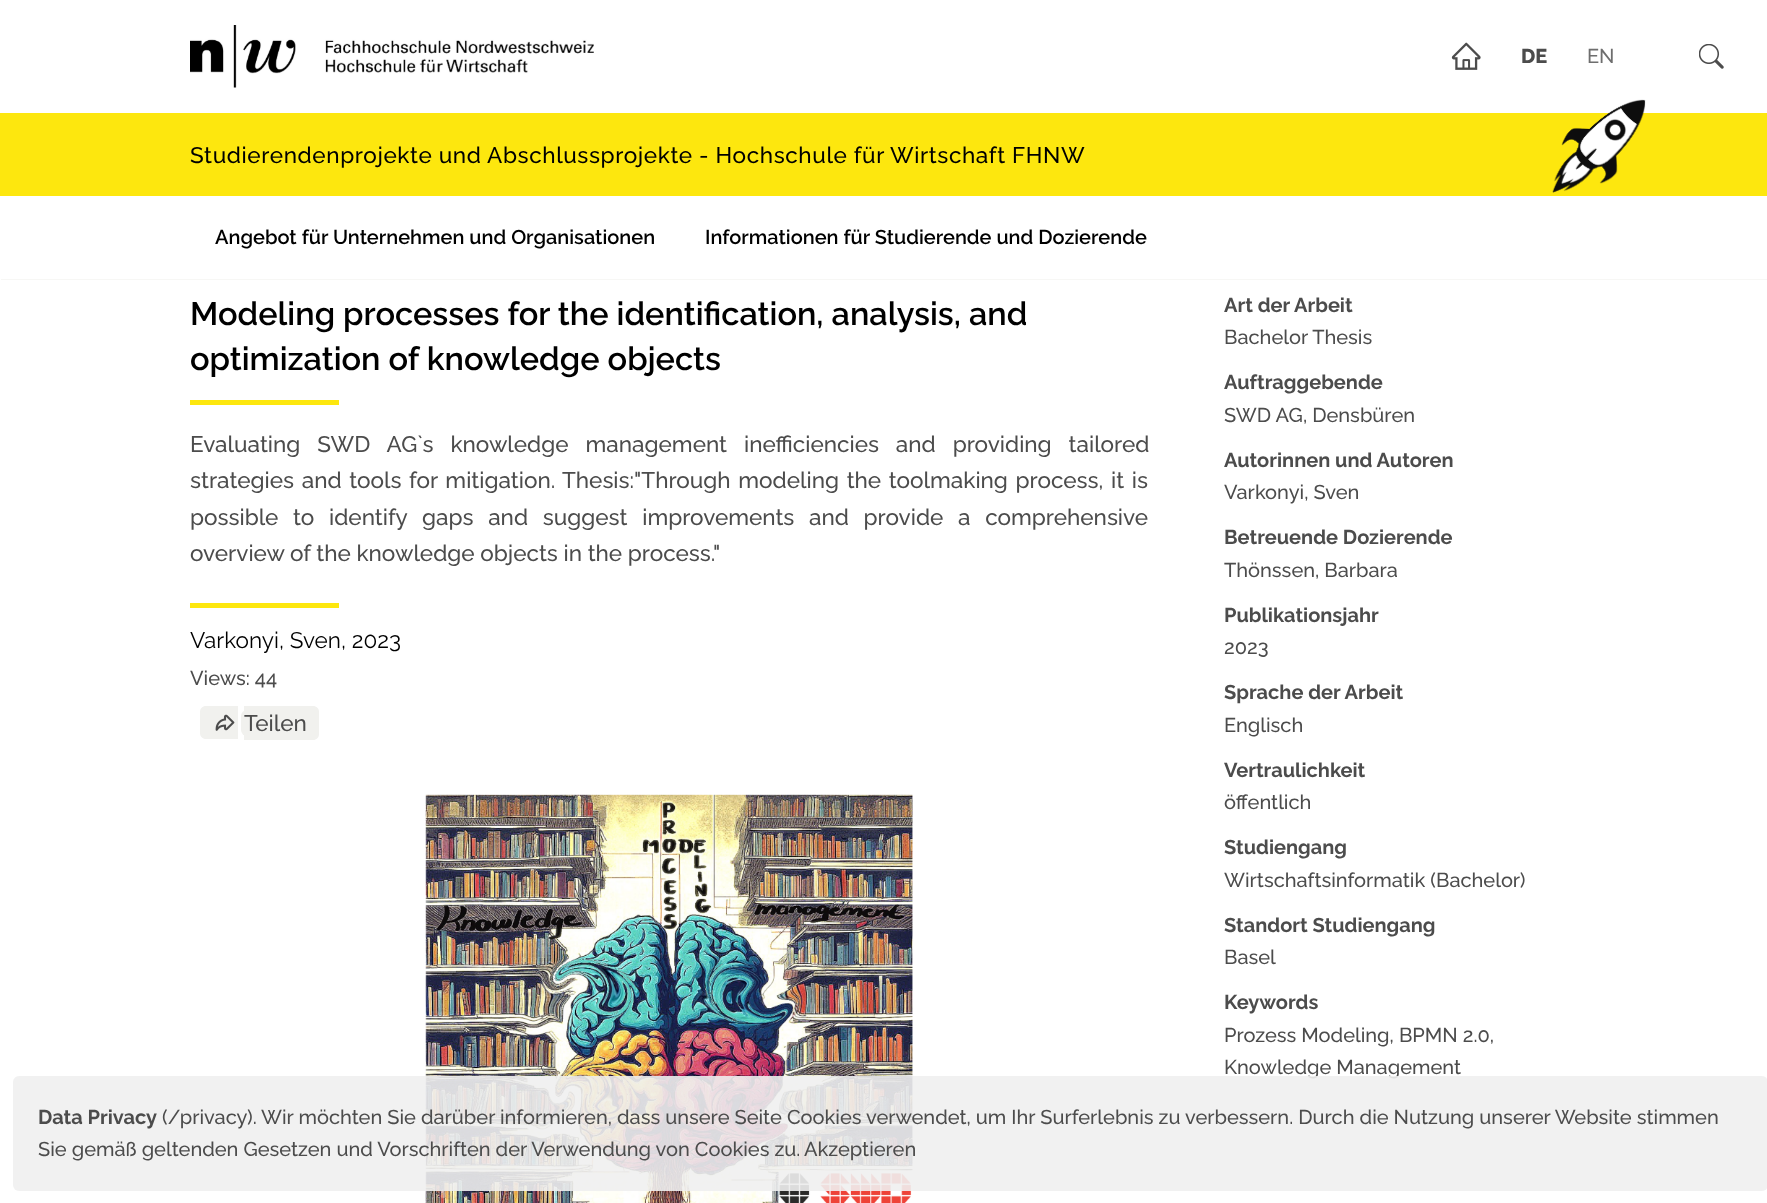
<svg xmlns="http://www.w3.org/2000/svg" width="1767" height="1203">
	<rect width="100%" height="100%" fill="#FFFFFF" />
	<image x="1451" y="42" width="30" height="28" href="assets/img1.png" />
	<text x="1521" y="63" font-family="Raleway" font-size="20" font-weight="800" fill="#4C4C4C">DE</text>
	<text x="1587" y="63" font-family="Raleway" font-size="20" font-weight="500" fill="#6E6E6E">EN</text>
	<image x="1699" y="44" width="25" height="25" href="assets/img2.png" />
	<path d="M1 279V280H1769V1H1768V279Z" fill="#F7F7F5" />
	<image x="190" y="25" width="404" height="63" href="assets/img3.png" />
	<rect x="0" y="113" width="1767" height="83" fill="#FDE70E" />
	<text x="190" y="163" font-family="Raleway" font-size="22.5" font-weight="500" letter-spacing="0.62" fill="#000000">Studierendenprojekte und Abschlussprojekte - Hochschule für Wirtschaft FHNW</text>
	<g font-family="Raleway" font-size="20" font-weight="600" fill="#000000">
		<text x="215" y="244">Angebot für Unternehmen und Organisationen</text>
		<text x="705" y="244">Informationen für Studierende und Dozierende</text>
	</g>
	<image x="1552" y="99" width="94" height="94" href="assets/img4.png" />
	<g font-family="Raleway" font-size="32.5" font-weight="600" fill="#000000">
		<text x="190" y="325">Modeling processes for the identification, analysis, and</text>
		<text x="190" y="370">optimization of knowledge objects</text>
	</g>
	<rect x="190" y="400" width="149" height="5" fill="#FDE70E" />
	<g font-family="Raleway" font-size="22.5" font-weight="500" fill="#4C4C4C">
		<text x="190" y="452" word-spacing="11.25">Evaluating SWD AG`s knowledge management inefficiencies and providing tailored</text>
		<text x="190" y="488" word-spacing="2">strategies and tools for mitigation.</text>
		<text x="562" y="488" word-spacing="2">Thesis:"Through modeling the toolmaking process, it is</text>
		<text x="190" y="525" word-spacing="9">possible to identify gaps and suggest improvements and provide a comprehensive</text>
		<text x="190" y="561">overview of the knowledge objects in the process."</text>
	</g>
	<rect x="190" y="603" width="149" height="5" fill="#FDE70E" />
	<text x="190" y="648" font-family="Raleway" font-size="22.5" fill="#000000">Varkonyi, Sven, 2023</text>
	<text x="190" y="685" font-family="Raleway" font-size="20" font-weight="500" fill="#4C4C4C">Views: 44</text>
	<path d="M206 706H238V739H206C202.5 739 200 736.5 200 733V712C200 708.5 202.5 706 206 706Z" fill="#F1F1EE" />
	<image x="215" y="714" width="20" height="17" href="assets/img5.png" />
	<path d="M244 706H313C316.5 706 319 708.5 319 712V734C319 737.5 316.5 740 313 740H244Z" fill="#F1F1EE" />
	<rect x="241" y="710" width="75" height="26" rx="6" fill="#F1F1EE" />
	<text x="244" y="731" font-family="Raleway" font-size="22.5" font-weight="500" fill="#4C4C4C">Teilen</text>
	<image x="425" y="794" width="488" height="409" href="assets/img6.png" />
	<text x="1224" y="312" font-family="Raleway" font-size="20" font-weight="700" fill="#4C4C4C">Art der Arbeit</text>
	<text x="1224" y="344" font-family="Raleway" font-size="20" font-weight="500" fill="#4C4C4C">Bachelor Thesis</text>
	<text x="1224" y="389" font-family="Raleway" font-size="20" font-weight="700" fill="#4C4C4C">Auftraggebende</text>
	<text x="1224" y="422" font-family="Raleway" font-size="20" font-weight="500" fill="#4C4C4C">SWD AG, Densbüren</text>
	<text x="1224" y="467" font-family="Raleway" font-size="20" font-weight="700" fill="#4C4C4C">Autorinnen und Autoren</text>
	<text x="1224" y="499" font-family="Raleway" font-size="20" font-weight="500" fill="#4C4C4C">Varkonyi, Sven</text>
	<text x="1224" y="544" font-family="Raleway" font-size="20" font-weight="700" fill="#4C4C4C">Betreuende Dozierende</text>
	<text x="1224" y="577" font-family="Raleway" font-size="20" font-weight="500" fill="#4C4C4C">Thönssen, Barbara</text>
	<text x="1224" y="622" font-family="Raleway" font-size="20" font-weight="700" fill="#4C4C4C">Publikationsjahr</text>
	<text x="1224" y="654" font-family="Raleway" font-size="20" font-weight="500" fill="#4C4C4C">2023</text>
	<text x="1224" y="699" font-family="Raleway" font-size="20" font-weight="700" fill="#4C4C4C">Sprache der Arbeit</text>
	<text x="1224" y="732" font-family="Raleway" font-size="20" font-weight="500" fill="#4C4C4C">Englisch</text>
	<text x="1224" y="777" font-family="Raleway" font-size="20" font-weight="700" fill="#4C4C4C">Vertraulichkeit</text>
	<text x="1224" y="809" font-family="Raleway" font-size="20" font-weight="500" fill="#4C4C4C">öffentlich</text>
	<text x="1224" y="854" font-family="Raleway" font-size="20" font-weight="700" fill="#4C4C4C">Studiengang</text>
	<text x="1224" y="887" font-family="Raleway" font-size="20" font-weight="500" fill="#4C4C4C">Wirtschaftsinformatik (Bachelor)</text>
	<text x="1224" y="932" font-family="Raleway" font-size="20" font-weight="700" fill="#4C4C4C">Standort Studiengang</text>
	<text x="1224" y="964" font-family="Raleway" font-size="20" font-weight="500" fill="#4C4C4C">Basel</text>
	<text x="1224" y="1009" font-family="Raleway" font-size="20" font-weight="700" fill="#4C4C4C">Keywords</text>
	<g font-family="Raleway" font-size="20" font-weight="500" fill="#4C4C4C">
		<text x="1224" y="1042">Prozess Modeling, BPMN 2.0,</text>
		<text x="1224" y="1074">Knowledge Management</text>
	</g>
	<rect x="13" y="1076" width="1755" height="115" rx="6" fill="#EFEFEF" fill-opacity="0.9" />
	<text x="38" y="1124" font-family="Raleway" font-size="20" font-weight="700" fill="#4C4C4C">Data Privacy</text>
	<g font-family="Raleway" font-size="20" font-weight="500" fill="#4C4C4C">
		<text x="162" y="1124">(/privacy</text>
		<text x="247" y="1124">).</text>
		<text x="261" y="1124">Wir möchten Sie darüber informieren, dass unsere Seite Cookies verwendet, um Ihr Surferlebnis zu verbessern. Durch die Nutzung unserer Website stimmen</text>
		<text x="38" y="1156">Sie gemäß geltenden Gesetzen und Vorschriften der Verwendung von Cookies zu.</text>
		<text x="804" y="1156">Akzeptieren</text>
	</g>
</svg>
